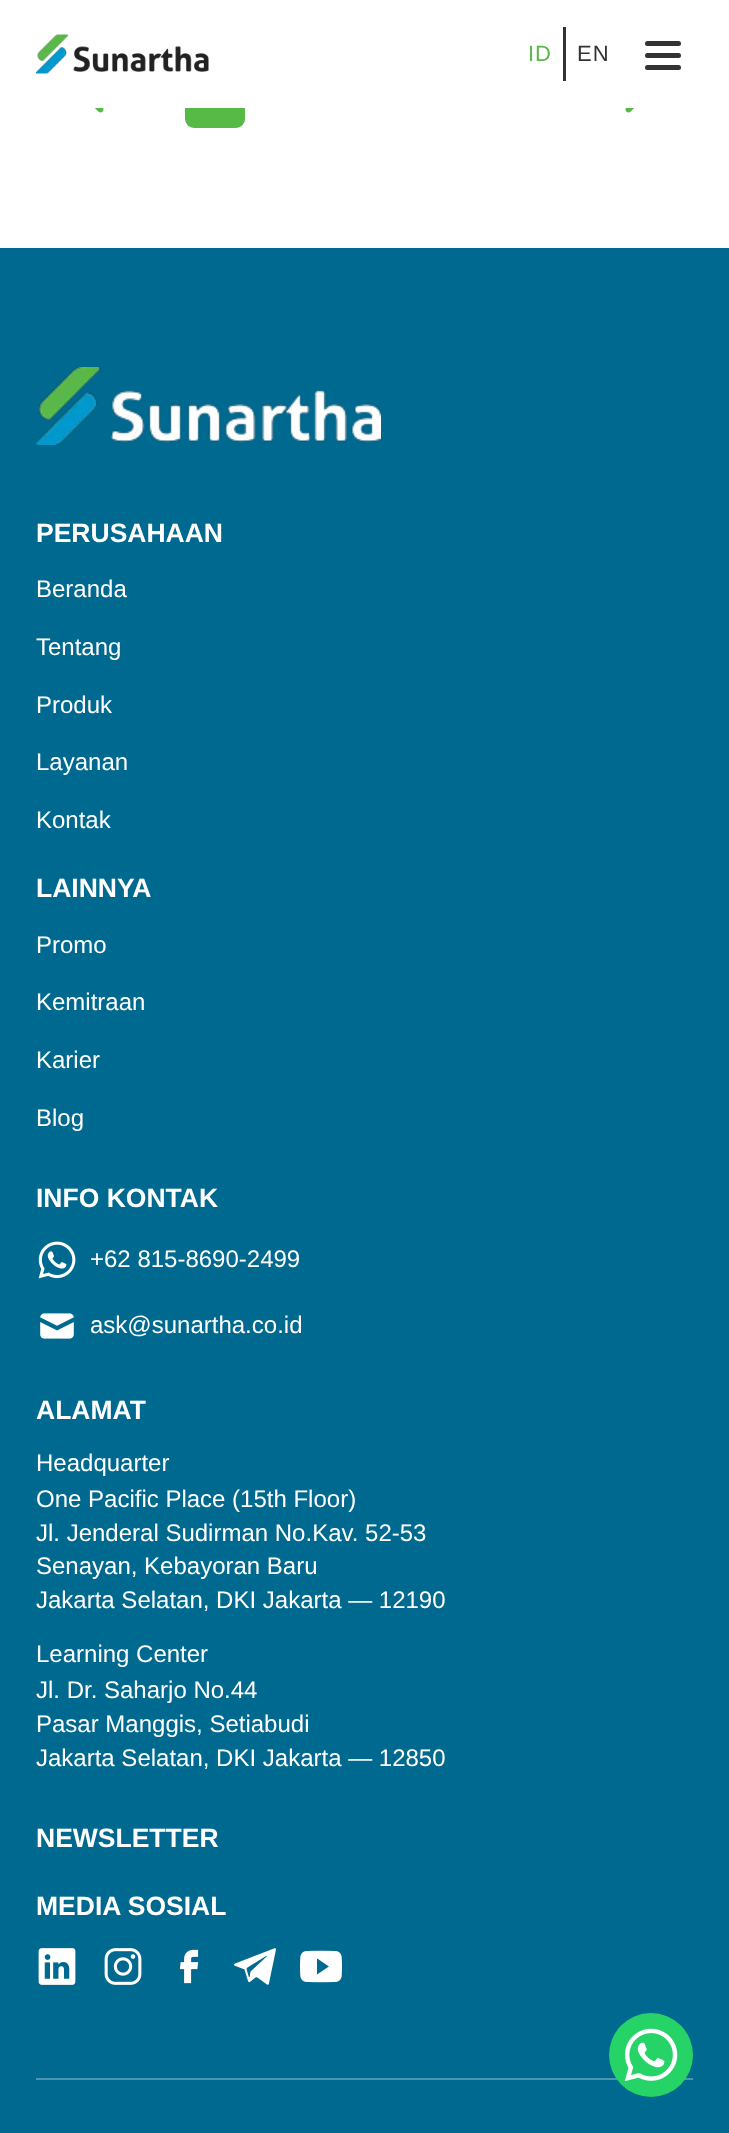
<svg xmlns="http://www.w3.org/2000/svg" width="729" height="2133">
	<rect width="100%" height="100%" fill="#FFFFFF" />
	<rect x="185" y="68" width="60" height="60" rx="9" fill="#57BA47" />
	<rect x="185" y="68" width="60" height="40" fill="#FFFFFF" />
	<image x="36" y="34" width="173" height="40" href="assets/img1.png" />
	<rect x="563" y="27" width="3" height="54" fill="#333333" />
	<text x="528" y="61" font-family="Liberation Sans" font-size="22" letter-spacing="1" fill="#57BA47">ID</text>
	<text x="577" y="61" font-family="Liberation Sans" font-size="22" letter-spacing="1" fill="#333333">EN</text>
	<rect x="645" y="53" width="36" height="5" rx="2.5" fill="#333333" />
	<rect x="645" y="41" width="36" height="5" rx="2.5" fill="#333333" />
	<rect x="645" y="65" width="36" height="5" rx="2.5" fill="#333333" />
	<image x="94" y="108" width="10" height="5" href="assets/img2.png" />
	<image x="625" y="108" width="10" height="5" href="assets/img3.png" />
	<rect x="0" y="248" width="729" height="1885" fill="#00698F" />
	<rect x="36" y="2078" width="657" height="2" fill="#4D96B1" />
	<circle cx="651" cy="2055" r="42" fill="#25D366" />
	<image x="624" y="2028" width="54" height="54" href="assets/img4.png" />
	<image x="36" y="367" width="345" height="78" href="assets/img5.png" />
	<text x="36" y="542" font-family="Liberation Sans" font-size="26.5" font-weight="700" fill="#FFFFFF">PERUSAHAAN</text>
	<g font-family="Liberation Sans" font-size="24" fill="#FFFFFF">
		<text x="36" y="597">Beranda</text>
		<text x="36" y="655">Tentang</text>
		<text x="36" y="713">Produk</text>
		<text x="36" y="770">Layanan</text>
		<text x="36" y="828">Kontak</text>
	</g>
	<text x="36" y="897" font-family="Liberation Sans" font-size="26.5" font-weight="700" fill="#FFFFFF">LAINNYA</text>
	<g font-family="Liberation Sans" font-size="24" fill="#FFFFFF">
		<text x="36" y="953">Promo</text>
		<text x="36" y="1010">Kemitraan</text>
		<text x="36" y="1068">Karier</text>
		<text x="36" y="1126">Blog</text>
	</g>
	<text x="36" y="1207" font-family="Liberation Sans" font-size="26.5" font-weight="700" fill="#FFFFFF">INFO KONTAK</text>
	<image x="38" y="1241" width="38" height="38" href="assets/img6.png" />
	<text x="90" y="1267" font-family="Liberation Sans" font-size="24" fill="#FFFFFF">+62 815-8690-2499</text>
	<image x="40" y="1313" width="34" height="26" href="assets/img7.png" />
	<text x="90" y="1333" font-family="Liberation Sans" font-size="24" fill="#FFFFFF">ask@sunartha.co.id</text>
	<text x="36" y="1419" font-family="Liberation Sans" font-size="26.5" font-weight="700" fill="#FFFFFF">ALAMAT</text>
	<g font-family="Liberation Sans" font-size="24" fill="#FFFFFF">
		<text x="36" y="1471">Headquarter</text>
		<text x="36" y="1507">One Pacific Place (15th Floor)</text>
		<text x="36" y="1541">Jl. Jenderal Sudirman No.Kav. 52-53</text>
		<text x="36" y="1574">Senayan, Kebayoran Baru</text>
		<text x="36" y="1608">Jakarta Selatan, DKI Jakarta — 12190</text>
		<text x="36" y="1662">Learning Center</text>
		<text x="36" y="1698">Jl. Dr. Saharjo No.44</text>
		<text x="36" y="1732">Pasar Manggis, Setiabudi</text>
		<text x="36" y="1766">Jakarta Selatan, DKI Jakarta — 12850</text>
	</g>
	<g font-family="Liberation Sans" font-size="26.5" font-weight="700" fill="#FFFFFF">
		<text x="36" y="1847">NEWSLETTER</text>
		<text x="36" y="1915">MEDIA SOSIAL</text>
	</g>
	<image x="38" y="1948" width="38" height="37" href="assets/img8.png" />
	<image x="104" y="1948" width="38" height="37" href="assets/img9.png" />
	<image x="179" y="1949" width="20" height="35" href="assets/img10.png" />
	<image x="234" y="1948" width="42" height="37" href="assets/img11.png" />
	<image x="300" y="1950" width="42" height="33" href="assets/img12.png" />
</svg>
